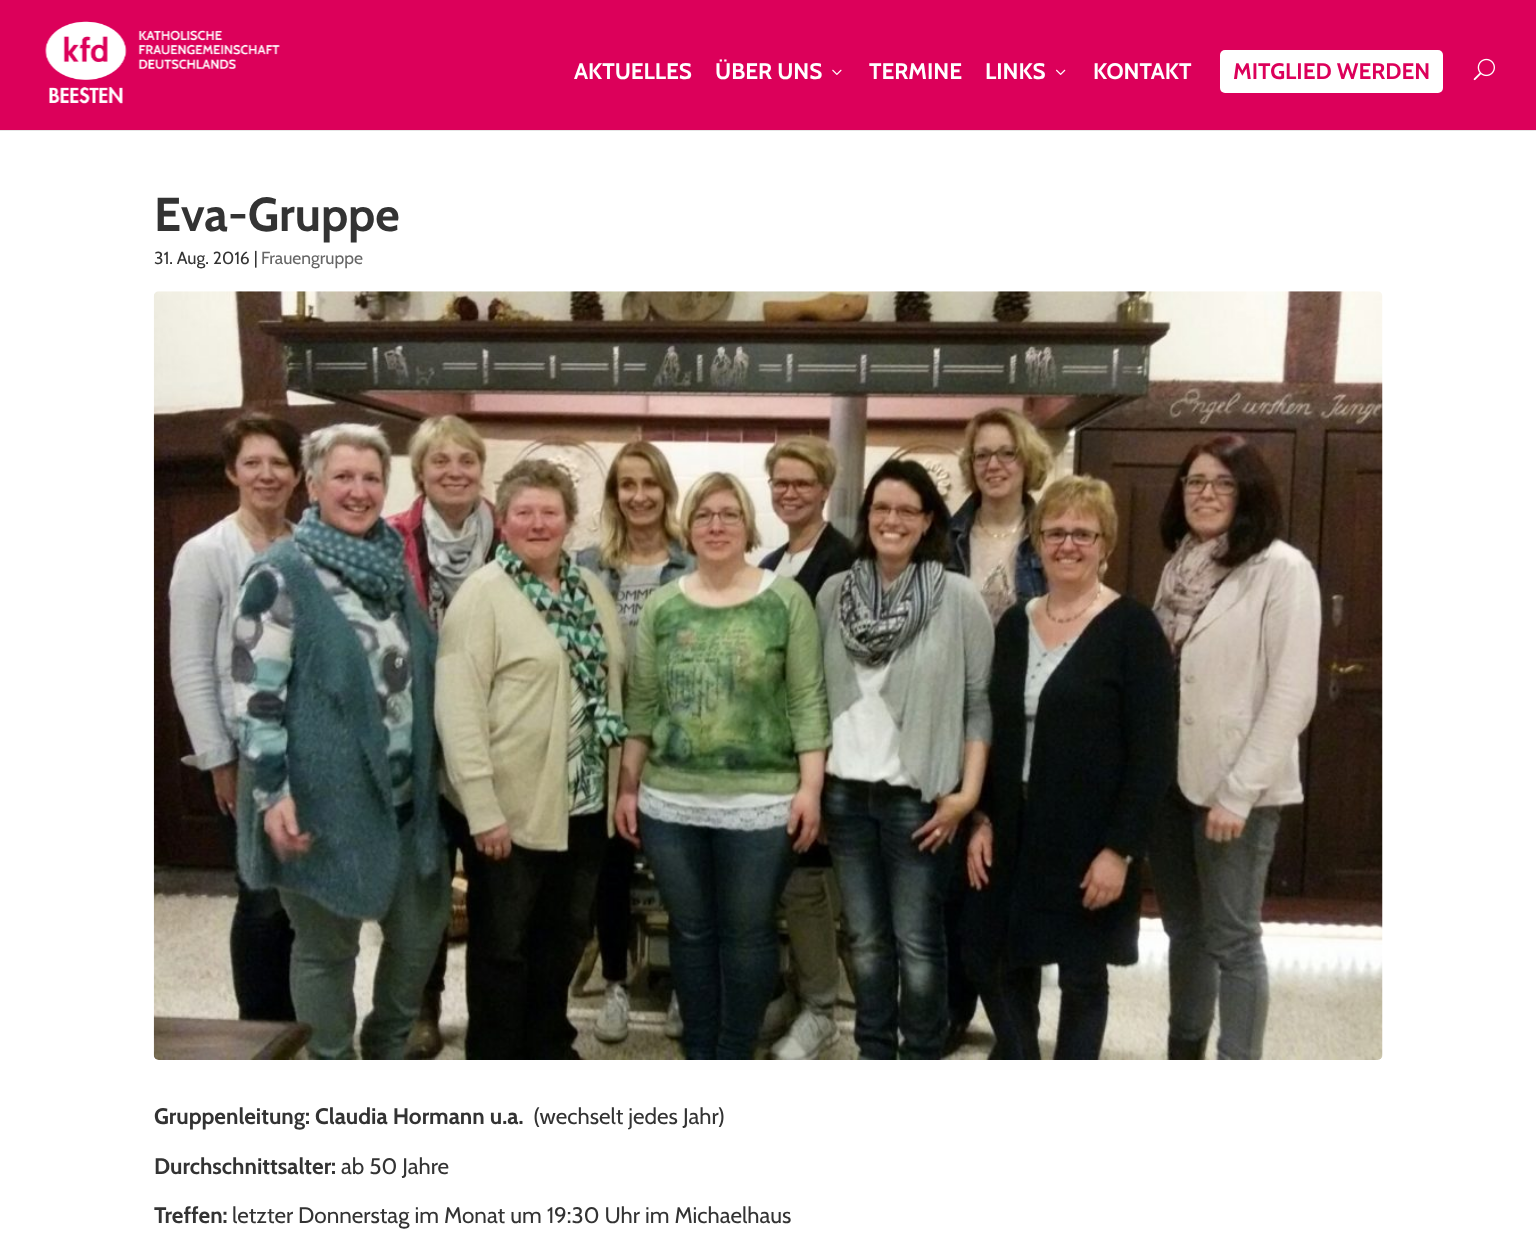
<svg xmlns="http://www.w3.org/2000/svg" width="1536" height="1241">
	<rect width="100%" height="100%" fill="#FFFFFF" />
	<rect x="0" y="130" width="1536" height="1" fill="#E6E6E6" />
	<rect x="0" y="0" width="1536" height="130" fill="#DC005A" />
	<image x="45" y="21" width="235" height="83" href="assets/img1.png" />
	<g font-family="Cabin" font-size="22.5" font-weight="700" fill="#FFFFFF">
		<text x="574" y="79">AKTUELLES</text>
		<text x="715" y="79">ÜBER UNS</text>
	</g>
	<image x="832" y="69" width="10" height="6" href="assets/img2.png" />
	<g font-family="Cabin" font-size="22.5" font-weight="700" fill="#FFFFFF">
		<text x="869" y="79">TERMINE</text>
		<text x="985" y="79">LINKS</text>
	</g>
	<image x="1056" y="69" width="10" height="6" href="assets/img3.png" />
	<text x="1093" y="79" font-family="Cabin" font-size="22.5" font-weight="700" fill="#FFFFFF">KONTAKT</text>
	<rect x="1220" y="50" width="223" height="43" rx="5" fill="#FFFFFF" />
	<text x="1233" y="79" font-family="Cabin" font-size="22.5" font-weight="700" fill="#DC005A">MITGLIED WERDEN</text>
	<image x="1473" y="58" width="22" height="23" href="assets/img4.png" />
	<text x="154" y="231" font-family="Cabin" font-size="47.5" font-weight="700" fill="#333333">Eva-Gruppe</text>
	<text x="154" y="264" font-family="Cabin" font-size="17.5" fill="#333333">31. Aug. 2016 |</text>
	<text x="261" y="264" font-family="Cabin" font-size="17.5" fill="#666666">Frauengruppe</text>
	<image x="153" y="291" width="1230" height="769" href="assets/img5.png" />
	<text x="154" y="1124" font-family="Cabin" font-size="22.5" font-weight="700" fill="#333333">Gruppenleitung: Claudia Hormann u.a.</text>
	<text x="533" y="1124" font-family="Cabin" font-size="22.5" fill="#333333">(wechselt jedes Jahr)</text>
	<text x="154" y="1174" font-family="Cabin" font-size="22.5" font-weight="700" fill="#333333">Durchschnittsalter:</text>
	<text x="341" y="1174" font-family="Cabin" font-size="22.5" fill="#333333">ab 50 Jahre</text>
	<text x="154" y="1223" font-family="Cabin" font-size="22.5" font-weight="700" fill="#333333">Treffen:</text>
	<text x="232" y="1223" font-family="Cabin" font-size="22.5" fill="#333333">letzter Donnerstag im Monat um 19:30 Uhr im Michaelhaus</text>
</svg>
